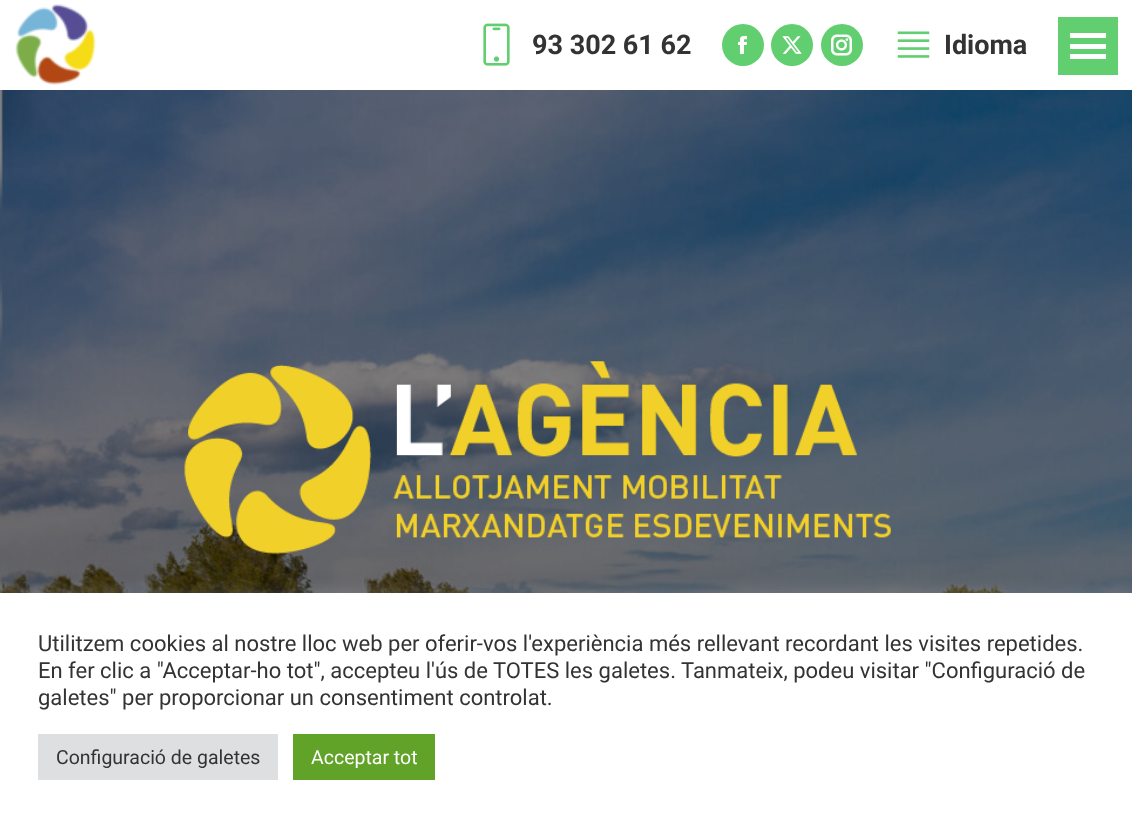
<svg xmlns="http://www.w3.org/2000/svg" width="1132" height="825">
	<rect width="100%" height="100%" fill="#FFFFFF" />
	<image x="15" y="4" width="81" height="81" href="assets/img1.png" />
	<image x="483" y="23" width="27" height="43" href="assets/img2.png" />
	<text x="532" y="54" font-family="Roboto" font-size="27" font-weight="700" fill="#333333">93 302 61 62</text>
	<circle cx="743" cy="45" r="21" fill="#61CE70" />
	<image x="738" y="36" width="9" height="18" href="assets/img3.png" />
	<circle cx="792" cy="45" r="21" fill="#61CE70" />
	<image x="782" y="36" width="20" height="18" href="assets/img4.png" />
	<circle cx="842" cy="45" r="21" fill="#61CE70" />
	<image x="831" y="34" width="21" height="22" href="assets/img5.png" />
	<image x="897" y="31" width="33" height="27" href="assets/img6.png" />
	<text x="944" y="54" font-family="Roboto" font-size="27" font-weight="700" fill="#333333">Idioma</text>
	<rect x="1058" y="17" width="60" height="58" fill="#61CE70" />
	<rect x="1070" y="33" width="36" height="5" fill="#FFFFFF" />
	<rect x="1070" y="44" width="36" height="5" fill="#FFFFFF" />
	<rect x="1070" y="54" width="36" height="5" fill="#FFFFFF" />
	<image x="0" y="90" width="1132" height="503" href="assets/img7.png" />
	<image x="184" y="361" width="707" height="193" href="assets/img8.png" />
	<rect x="0" y="591" width="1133" height="233" fill="#ACABAB" fill-opacity="0.3" filter="blur(7.5px)" />
	<rect x="0" y="593" width="1132" height="232" fill="#FFFFFF" />
	<g font-family="Roboto" font-size="22" fill="#333333">
		<text x="38" y="651">Utilitzem cookies al nostre lloc web per oferir-vos l'experiència més rellevant recordant les visites repetides.</text>
		<text x="38" y="678">En fer clic a "Acceptar-ho tot", accepteu l'ús de TOTES les galetes. Tanmateix, podeu visitar "Configuració de</text>
		<text x="38" y="705">galetes" per proporcionar un consentiment controlat.</text>
	</g>
	<rect x="38" y="734" width="240" height="46" fill="#DEDFE0" />
	<text x="56" y="764" font-family="Roboto" font-size="19.5" fill="#333333">Configuració de galetes</text>
	<rect x="293" y="734" width="142" height="46" fill="#61A229" />
	<text x="311" y="764" font-family="Roboto" font-size="19.5" fill="#FFFFFF">Acceptar tot</text>
</svg>
